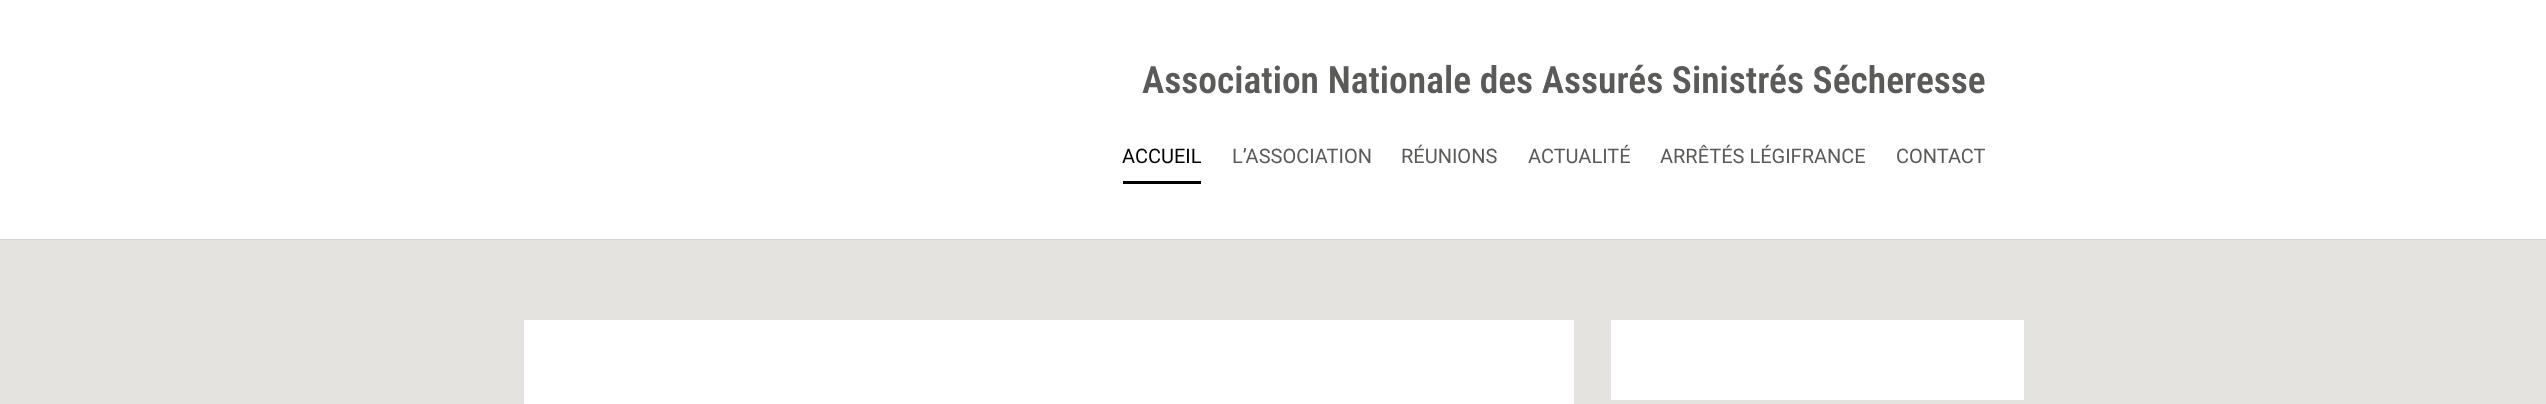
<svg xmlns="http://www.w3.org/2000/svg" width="2546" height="404">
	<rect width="100%" height="100%" fill="#E5E3E0" />
	<rect x="0" y="0" width="2546" height="239" fill="#FFFFFF" />
	<rect x="0" y="239" width="2546" height="1" fill="#D3D3D3" />
	<text x="1142" y="93" font-family="Roboto Condensed" font-size="37.5" font-weight="600" fill="#5A5A58">Association Nationale des Assurés Sinistrés Sécheresse</text>
	<text x="1122" y="163" font-family="Roboto" font-size="20" fill="#000000">ACCUEIL</text>
	<rect x="1123" y="181" width="78" height="3" fill="#000000" />
	<g font-family="Roboto" font-size="20" fill="#5A5A58">
		<text x="1232" y="163">L’ASSOCIATION</text>
		<text x="1401" y="163">RÉUNIONS</text>
		<text x="1528" y="163">ACTUALITÉ</text>
		<text x="1660" y="163">ARRÊTÉS LÉGIFRANCE</text>
		<text x="1896" y="163">CONTACT</text>
	</g>
	<rect x="524" y="320" width="1050" height="84" fill="#FFFFFF" />
	<rect x="1611" y="320" width="413" height="80" fill="#FFFFFF" />
</svg>
